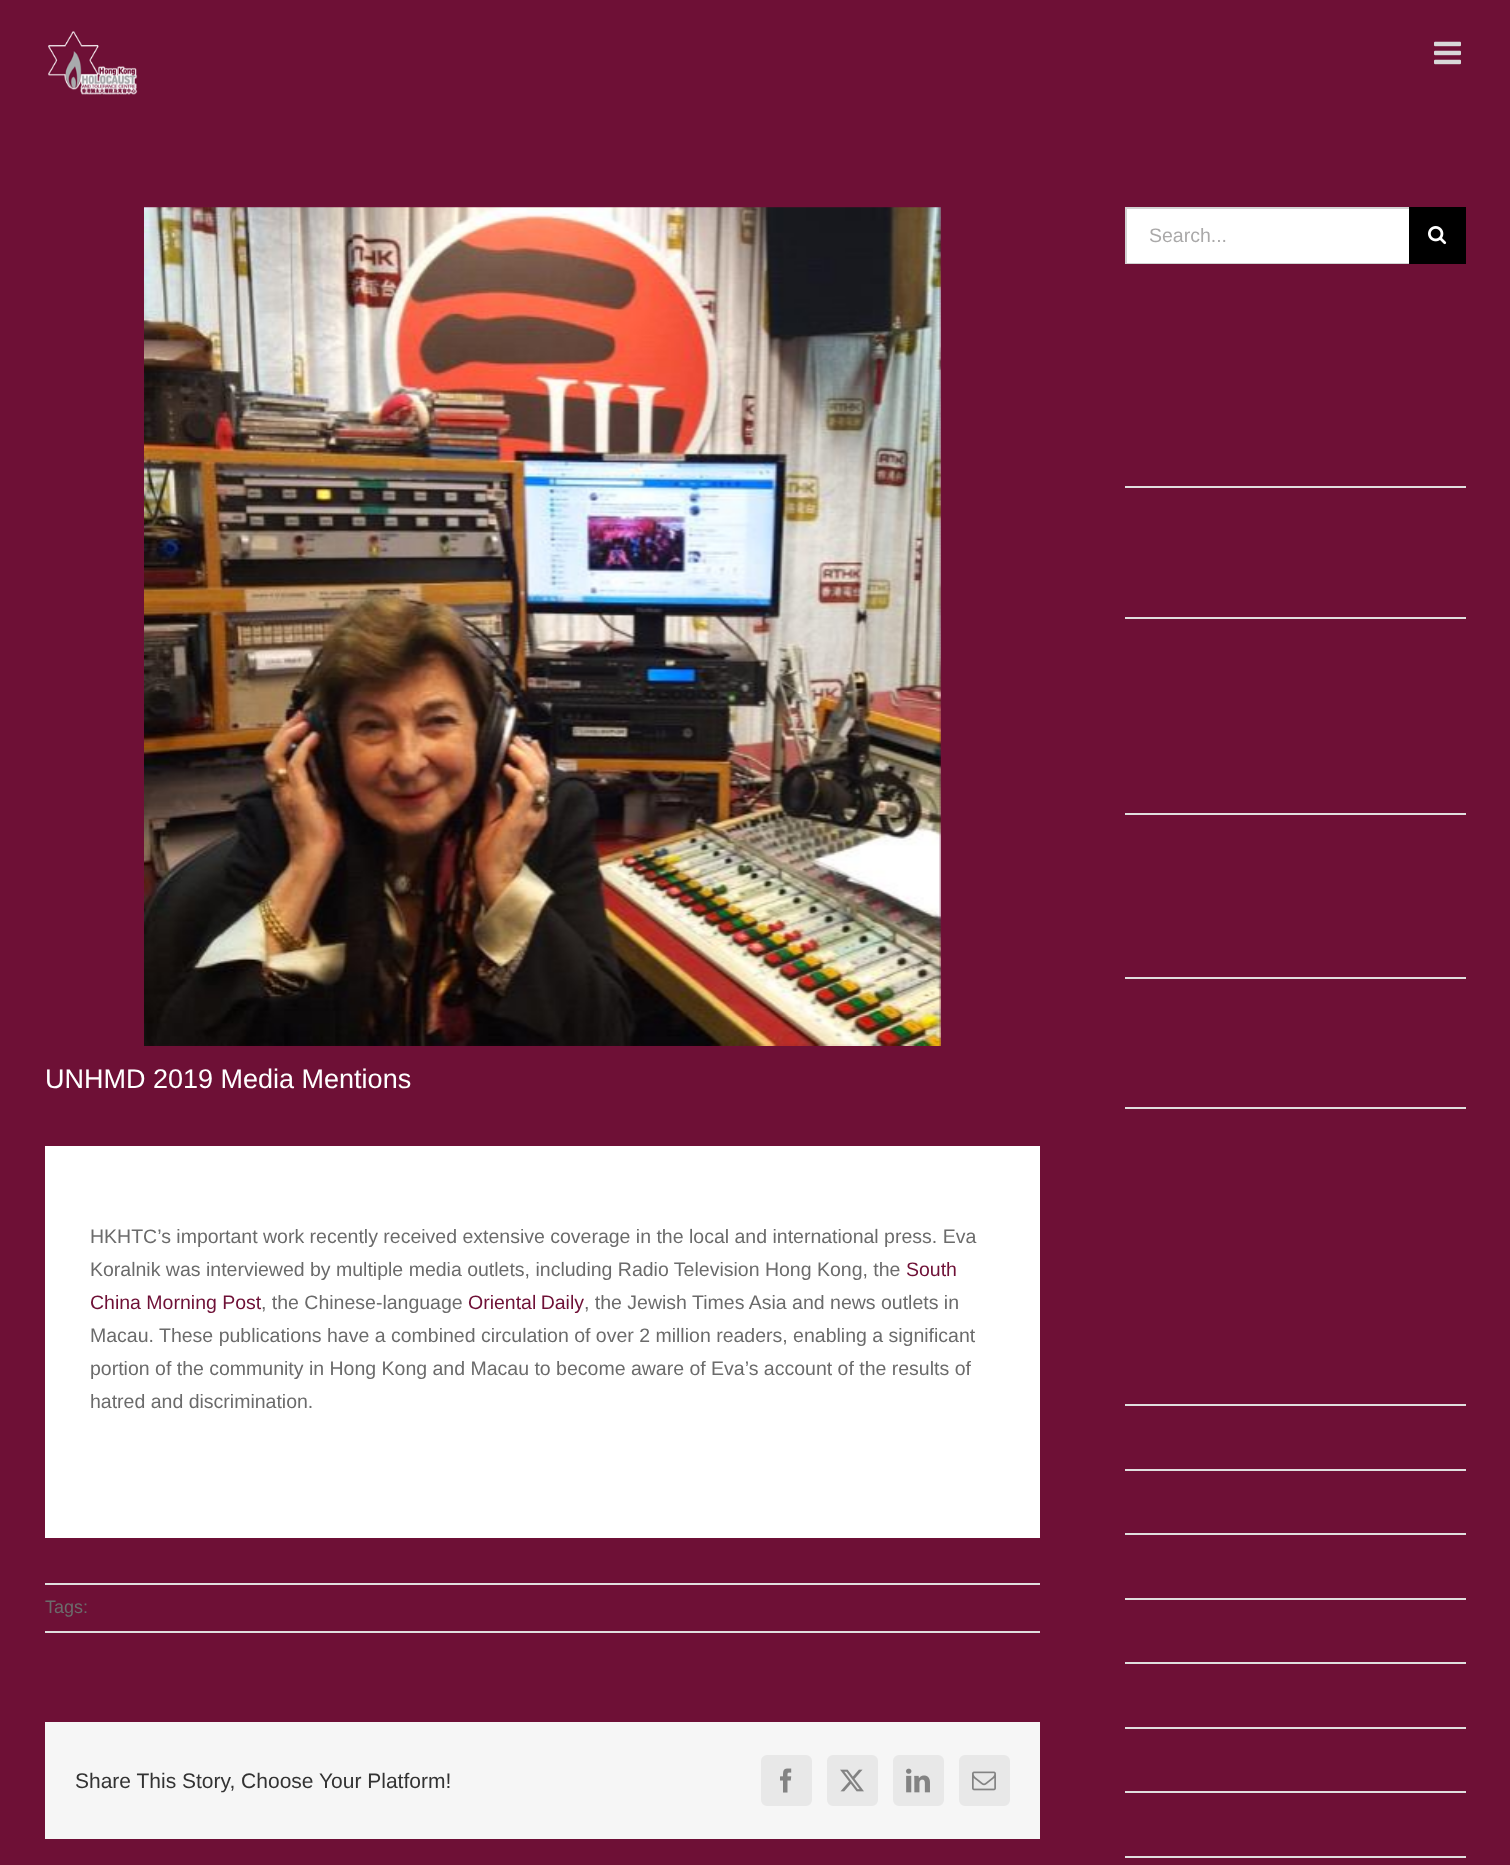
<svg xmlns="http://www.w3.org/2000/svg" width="1510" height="1865">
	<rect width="100%" height="100%" fill="#6E1036" />
	<image x="48" y="31" width="90" height="64" href="assets/img1.png" />
	<image x="1434" y="41" width="27" height="24" href="assets/img2.png" />
	<rect x="1127" y="209" width="282" height="54" fill="#FFFFFF" />
	<rect x="1125" y="207" width="284" height="2" fill="#D2D2D2" />
	<rect x="1125" y="263" width="284" height="1" fill="#D2D2D2" />
	<rect x="1125" y="207" width="2" height="57" fill="#D2D2D2" />
	<text x="1149" y="242" font-family="Liberation Sans" font-size="19.5" fill="#AAA9A9">Search...</text>
	<rect x="1409" y="207" width="57" height="57" fill="#000000" />
	<image x="1428" y="226" width="19" height="19" href="assets/img3.png" />
	<rect x="1125" y="486" width="341" height="2" fill="#E0DEDE" />
	<rect x="1125" y="617" width="341" height="2" fill="#E0DEDE" />
	<rect x="1125" y="813" width="341" height="2" fill="#E0DEDE" />
	<rect x="1125" y="977" width="341" height="2" fill="#E0DEDE" />
	<rect x="1125" y="1107" width="341" height="2" fill="#E0DEDE" />
	<rect x="1125" y="1404" width="341" height="2" fill="#E0DEDE" />
	<rect x="1125" y="1469" width="341" height="2" fill="#E0DEDE" />
	<rect x="1125" y="1533" width="341" height="2" fill="#E0DEDE" />
	<rect x="1125" y="1598" width="341" height="2" fill="#E0DEDE" />
	<rect x="1125" y="1662" width="341" height="2" fill="#E0DEDE" />
	<rect x="1125" y="1727" width="341" height="2" fill="#E0DEDE" />
	<rect x="1125" y="1791" width="341" height="2" fill="#E0DEDE" />
	<rect x="1125" y="1856" width="341" height="2" fill="#E0DEDE" />
	<image x="144" y="207" width="797" height="839" href="assets/img4.png" />
	<text x="45" y="1088" font-family="Liberation Sans" font-size="27" fill="#FFFFFF">UNHMD 2019 Media Mentions</text>
	<rect x="45" y="1146" width="995" height="392" fill="#FFFFFF" />
	<g font-family="Liberation Sans" font-size="19.5" fill="#6B6B6B">
		<text x="90" y="1243">HKHTC’s important work recently received extensive coverage in the local and international press. Eva</text>
		<text x="90" y="1276">Koralnik was interviewed by multiple media outlets, including Radio Television Hong Kong, the</text>
	</g>
	<g font-family="Liberation Sans" font-size="19.5" fill="#6E1036">
		<text x="906" y="1276">South</text>
		<text x="90" y="1309">China Morning Post</text>
	</g>
	<text x="261" y="1309" font-family="Liberation Sans" font-size="19.5" fill="#6B6B6B">, the Chinese-language</text>
	<text x="468" y="1309" word-spacing="-1" font-family="Liberation Sans" font-size="19.5" fill="#6E1036">Oriental Daily</text>
	<g font-family="Liberation Sans" font-size="19.5" fill="#6B6B6B">
		<text x="584" y="1309">, the Jewish Times Asia and news outlets in</text>
		<text x="90" y="1342">Macau. These publications have a combined circulation of over 2 million readers, enabling a significant</text>
		<text x="90" y="1375">portion of the community in Hong Kong and Macau to become aware of Eva’s account of the results of</text>
		<text x="90" y="1408">hatred and discrimination.</text>
	</g>
	<rect x="45" y="1583" width="995" height="2" fill="#E0DEDE" />
	<rect x="45" y="1631" width="995" height="2" fill="#E0DEDE" />
	<text x="45" y="1613" font-family="Liberation Sans" font-size="18" fill="#6B6B6B">Tags:</text>
	<rect x="45" y="1722" width="995" height="117" fill="#F6F6F6" />
	<text x="75" y="1788" font-family="Liberation Sans" font-size="21" fill="#333333">Share This Story, Choose Your Platform!</text>
	<rect x="762" y="1756" width="49" height="49" rx="5" fill="#E8E8E8" stroke="#E8E8E8" stroke-width="2" />
	<image x="780" y="1768" width="12" height="25" href="assets/img5.png" />
	<rect x="828" y="1756" width="49" height="49" rx="5" fill="#E8E8E8" stroke="#E8E8E8" stroke-width="2" />
	<image x="840" y="1769" width="24" height="23" href="assets/img6.png" />
	<rect x="894" y="1756" width="49" height="49" rx="5" fill="#E8E8E8" stroke="#E8E8E8" stroke-width="2" />
	<image x="906" y="1768" width="24" height="25" href="assets/img7.png" />
	<rect x="960" y="1756" width="49" height="49" rx="5" fill="#E8E8E8" stroke="#E8E8E8" stroke-width="2" />
	<image x="972" y="1771" width="24" height="20" href="assets/img8.png" />
</svg>
